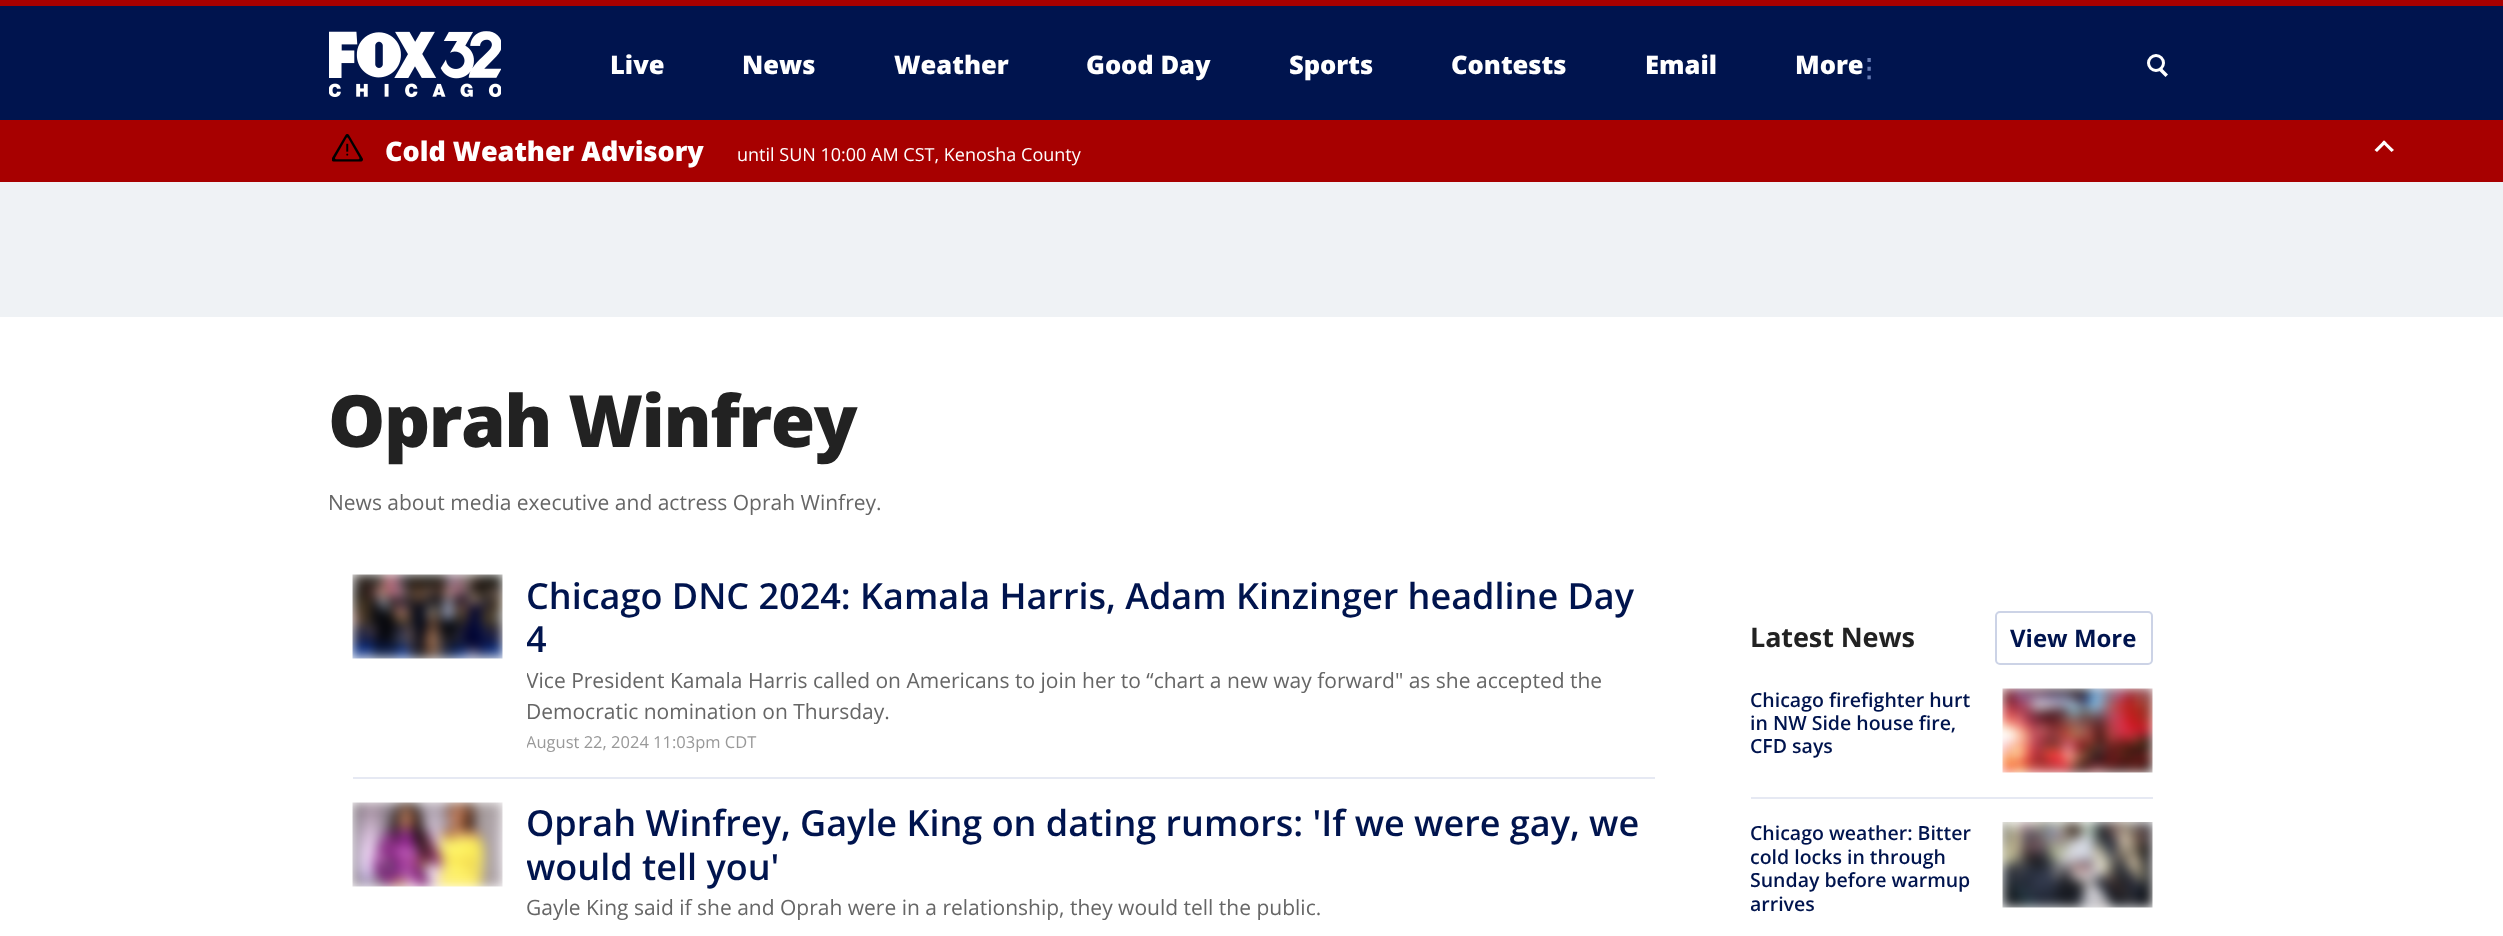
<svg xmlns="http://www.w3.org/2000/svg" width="2503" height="936">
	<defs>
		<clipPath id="clip1"><rect x="527" y="575" width="1128" height="178" /></clipPath>
		<clipPath id="clip2"><rect x="527" y="803" width="1128" height="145" /></clipPath>
		<clipPath id="clip3"><rect x="1751" y="822" width="234" height="98" /></clipPath>
	</defs>
	<rect width="100%" height="100%" fill="#FFFFFF" />
	<rect x="0" y="6" width="2503" height="114" fill="#00144E" />
	<rect x="0" y="0" width="2503" height="6" fill="#A70000" />
	<image x="329" y="31" width="172" height="67" href="assets/img1.png" />
	<g font-family="Open Sans" font-size="25.5" font-weight="800" fill="#FFFFFF">
		<text x="610" y="74">Live</text>
		<text x="742" y="74">News</text>
		<text x="894" y="74">Weather</text>
		<text x="1086" y="74">Good Day</text>
		<text x="1289" y="74">Sports</text>
		<text x="1451" y="74">Contests</text>
		<text x="1645" y="74">Email</text>
		<text x="1795" y="74">More</text>
	</g>
	<text x="1856" y="77" font-family="DejaVu Sans" font-size="25.5" font-weight="700" fill="#667BB3">⋮</text>
	<circle cx="2156" cy="63" r="7.5" fill="none" stroke="#FFFFFF" stroke-width="3" />
	<path d="M2160.5 67L2168 74.5L2165.5 77L2158 69.5Z" fill="#FFFFFF" />
	<rect x="0" y="120" width="2503" height="62" fill="#A70000" />
	<image x="332" y="134" width="31" height="28" href="assets/img2.png" />
	<text x="385" y="161" font-family="Open Sans" font-size="27" font-weight="800" fill="#FFFFFF">Cold Weather Advisory</text>
	<text x="737" y="161" font-family="Open Sans" font-size="18" fill="#FFFFFF">until SUN 10:00 AM CST, Kenosha County</text>
	<path d="M2377 152L2374.5 150L2384 140.5L2386.5 142.5Z" fill="#FFFFFF" />
	<path d="M2391.5 152L2382 142.5L2384 140.5L2394 150Z" fill="#FFFFFF" />
	<rect x="0" y="182" width="2503" height="135" fill="#EFF2F5" />
	<text x="328" y="447" font-family="Open Sans" font-size="72" font-weight="800" letter-spacing="-1.5" fill="#222222">Oprah Winfrey</text>
	<text x="328" y="510" font-family="Open Sans" font-size="21" fill="#666666">News about media executive and actress Oprah Winfrey.</text>
	<rect x="353" y="777" width="1302" height="2" fill="#E6E9F3" />
	<image x="352" y="574" width="151" height="85" href="assets/img3.png" />
	<text x="526" y="609" font-family="Open Sans" font-size="36" font-weight="600" fill="#00144E">Chicago DNC 2024: Kamala Harris, Adam Kinzinger headline Day</text>
	<g clip-path="url(#clip1)">
		<text x="526" y="652" font-family="Open Sans" font-size="36" font-weight="600" fill="#00144E">4</text>
		<text x="526" y="688" font-family="Open Sans" font-size="21" fill="#666666">Vice President Kamala Harris called on Americans to join her to “chart a new way forward" as she accepted the</text>
	</g>
	<text x="526" y="719" font-family="Open Sans" font-size="21" fill="#666666">Democratic nomination on Thursday.</text>
	<g clip-path="url(#clip1)">
		<text x="526" y="748" font-family="Open Sans" font-size="16.5" fill="#999999">August 22, 2024 11:03pm CDT</text>
	</g>
	<image x="352" y="802" width="151" height="85" href="assets/img4.png" />
	<text x="526" y="836" font-family="Open Sans" font-size="36" font-weight="600" fill="#00144E">Oprah Winfrey, Gayle King on dating rumors: 'If we were gay, we</text>
	<g clip-path="url(#clip2)">
		<text x="526" y="880" font-family="Open Sans" font-size="36" font-weight="600" fill="#00144E">would tell you'</text>
	</g>
	<text x="526" y="915" font-family="Open Sans" font-size="21" fill="#666666">Gayle King said if she and Oprah were in a relationship, they would tell the public.</text>
	<text x="1750" y="647" font-family="Open Sans" font-size="27" font-weight="700" letter-spacing="-0.1" fill="#222222">Latest News</text>
	<rect x="1996" y="612" width="156" height="52" rx="4" fill="none" stroke="#CCD3E6" stroke-width="2" />
	<text x="2010" y="647" font-family="Open Sans" font-size="24" font-weight="700" fill="#00144E">View More</text>
	<rect x="1751" y="797" width="402" height="2" fill="#E6E9F3" />
	<g font-family="Open Sans" font-size="19.5" font-weight="600" fill="#00144E">
		<text x="1750" y="707">Chicago firefighter hurt</text>
		<text x="1750" y="730">in NW Side house fire,</text>
		<text x="1750" y="753">CFD says</text>
	</g>
	<image x="2002" y="688" width="151" height="85" href="assets/img5.png" />
	<text x="1750" y="840" font-family="Open Sans" font-size="19.5" font-weight="600" fill="#00144E">Chicago weather: Bitter</text>
	<g clip-path="url(#clip3)">
		<g font-family="Open Sans" font-size="19.5" font-weight="600" fill="#00144E">
			<text x="1750" y="864">cold locks in through</text>
			<text x="1750" y="887">Sunday before warmup</text>
			<text x="1750" y="911">arrives</text>
		</g>
	</g>
	<image x="2002" y="822" width="151" height="86" href="assets/img6.png" />
</svg>
